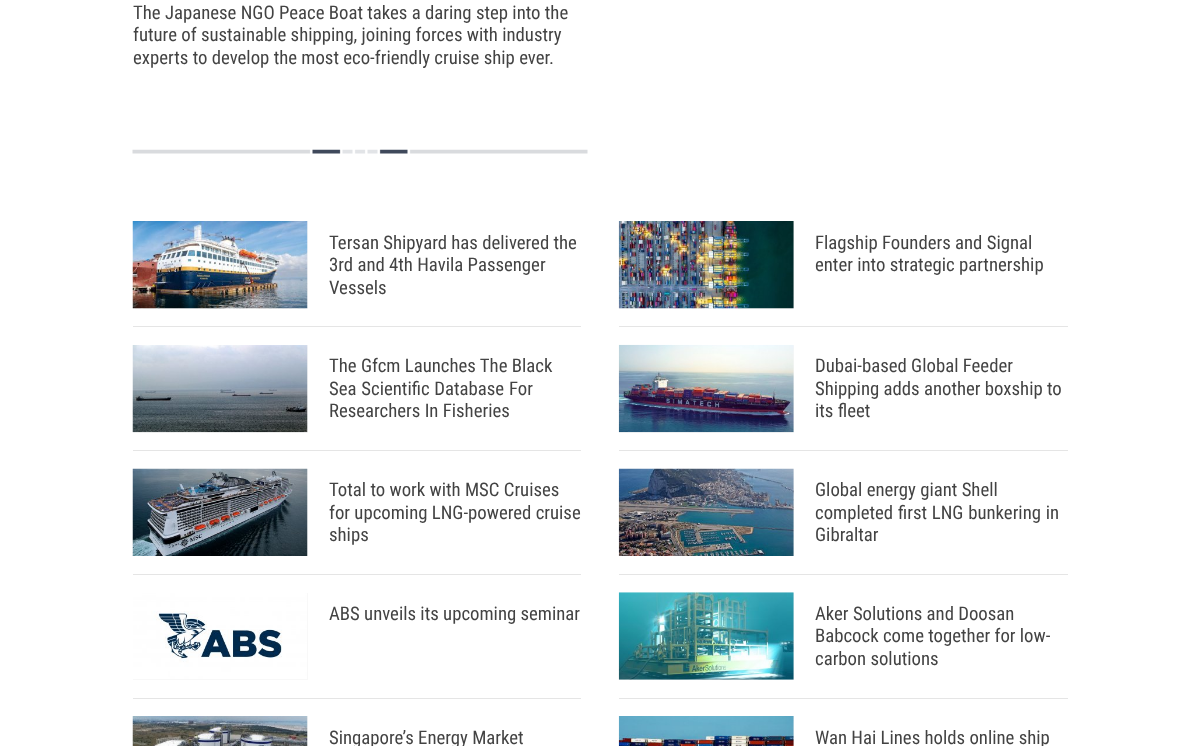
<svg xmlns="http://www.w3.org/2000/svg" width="1200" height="746">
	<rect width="100%" height="100%" fill="#FFFFFF" />
	<image x="132" y="149" width="456" height="5" href="assets/img1.png" />
	<g font-family="Roboto Condensed" font-size="18.75" fill="#434343">
		<text x="133" y="19">The Japanese NGO Peace Boat takes a daring step into the</text>
		<text x="133" y="41">future of sustainable shipping, joining forces with industry</text>
		<text x="133" y="64">experts to develop the most eco-friendly cruise ship ever.</text>
	</g>
	<rect x="133" y="326" width="448" height="1" fill="#E5E5E5" />
	<rect x="133" y="221" width="175" height="88" fill="#F8F8F8" />
	<image x="132" y="221" width="176" height="88" href="assets/img2.png" />
	<g font-family="Roboto Condensed" font-size="18.75" fill="#434343">
		<text x="329" y="249">Tersan Shipyard has delivered the</text>
		<text x="329" y="271">3rd and 4th Havila Passenger</text>
		<text x="329" y="294">Vessels</text>
	</g>
	<rect x="619" y="326" width="449" height="1" fill="#E5E5E5" />
	<rect x="619" y="221" width="175" height="88" fill="#F8F8F8" />
	<image x="618" y="221" width="176" height="88" href="assets/img3.png" />
	<g font-family="Roboto Condensed" font-size="18.75" fill="#434343">
		<text x="815" y="249">Flagship Founders and Signal</text>
		<text x="815" y="271">enter into strategic partnership</text>
	</g>
	<rect x="133" y="450" width="448" height="1" fill="#E5E5E5" />
	<rect x="133" y="345" width="175" height="88" fill="#F8F8F8" />
	<image x="132" y="345" width="176" height="88" href="assets/img4.png" />
	<g font-family="Roboto Condensed" font-size="18.75" fill="#434343">
		<text x="329" y="372">The Gfcm Launches The Black</text>
		<text x="329" y="395" word-spacing="0.5">Sea Scientific Database For</text>
		<text x="329" y="417">Researchers In Fisheries</text>
	</g>
	<rect x="619" y="450" width="449" height="1" fill="#E5E5E5" />
	<rect x="619" y="345" width="175" height="88" fill="#F8F8F8" />
	<image x="618" y="344" width="176" height="89" href="assets/img5.png" />
	<g font-family="Roboto Condensed" font-size="18.75" fill="#434343">
		<text x="815" y="372">Dubai-based Global Feeder</text>
		<text x="815" y="395">Shipping adds another boxship to</text>
		<text x="815" y="417">its fleet</text>
	</g>
	<rect x="133" y="574" width="448" height="1" fill="#E5E5E5" />
	<rect x="307" y="469" width="1" height="87" fill="#F8F8F8" />
	<image x="132" y="468" width="176" height="88" href="assets/img6.png" />
	<g font-family="Roboto Condensed" font-size="18.75" fill="#434343">
		<text x="329" y="496">Total to work with MSC Cruises</text>
		<text x="329" y="519">for upcoming LNG-powered cruise</text>
		<text x="329" y="541">ships</text>
	</g>
	<rect x="619" y="574" width="449" height="1" fill="#E5E5E5" />
	<rect x="793" y="469" width="1" height="87" fill="#F8F8F8" />
	<image x="618" y="468" width="176" height="88" href="assets/img7.png" />
	<g font-family="Roboto Condensed" font-size="18.75" fill="#434343">
		<text x="815" y="496">Global energy giant Shell</text>
		<text x="815" y="519" word-spacing="0.5">completed first LNG bunkering in</text>
		<text x="815" y="541">Gibraltar</text>
	</g>
	<rect x="133" y="698" width="448" height="1" fill="#E5E5E5" />
	<rect x="133" y="593" width="175" height="87" fill="#F8F8F8" />
	<image x="133" y="593" width="174" height="86" href="assets/img8.png" />
	<text x="329" y="620" font-family="Roboto Condensed" font-size="18.75" fill="#434343">ABS unveils its upcoming seminar</text>
	<rect x="619" y="698" width="449" height="1" fill="#E5E5E5" />
	<rect x="619" y="593" width="175" height="87" fill="#F8F8F8" />
	<image x="618" y="592" width="176" height="88" href="assets/img9.png" />
	<g font-family="Roboto Condensed" font-size="18.75" fill="#434343">
		<text x="815" y="620">Aker Solutions and Doosan</text>
		<text x="815" y="642">Babcock come together for low-</text>
		<text x="815" y="665">carbon solutions</text>
	</g>
	<rect x="307" y="716" width="1" height="30" fill="#F8F8F8" />
	<image x="132" y="716" width="176" height="30" href="assets/img10.png" />
	<text x="329" y="744" font-family="Roboto Condensed" font-size="18.75" fill="#434343">Singapore’s Energy Market</text>
	<rect x="793" y="716" width="1" height="30" fill="#F8F8F8" />
	<image x="618" y="716" width="176" height="30" href="assets/img11.png" />
	<text x="815" y="744" font-family="Roboto Condensed" font-size="18.75" fill="#434343">Wan Hai Lines holds online ship</text>
</svg>
